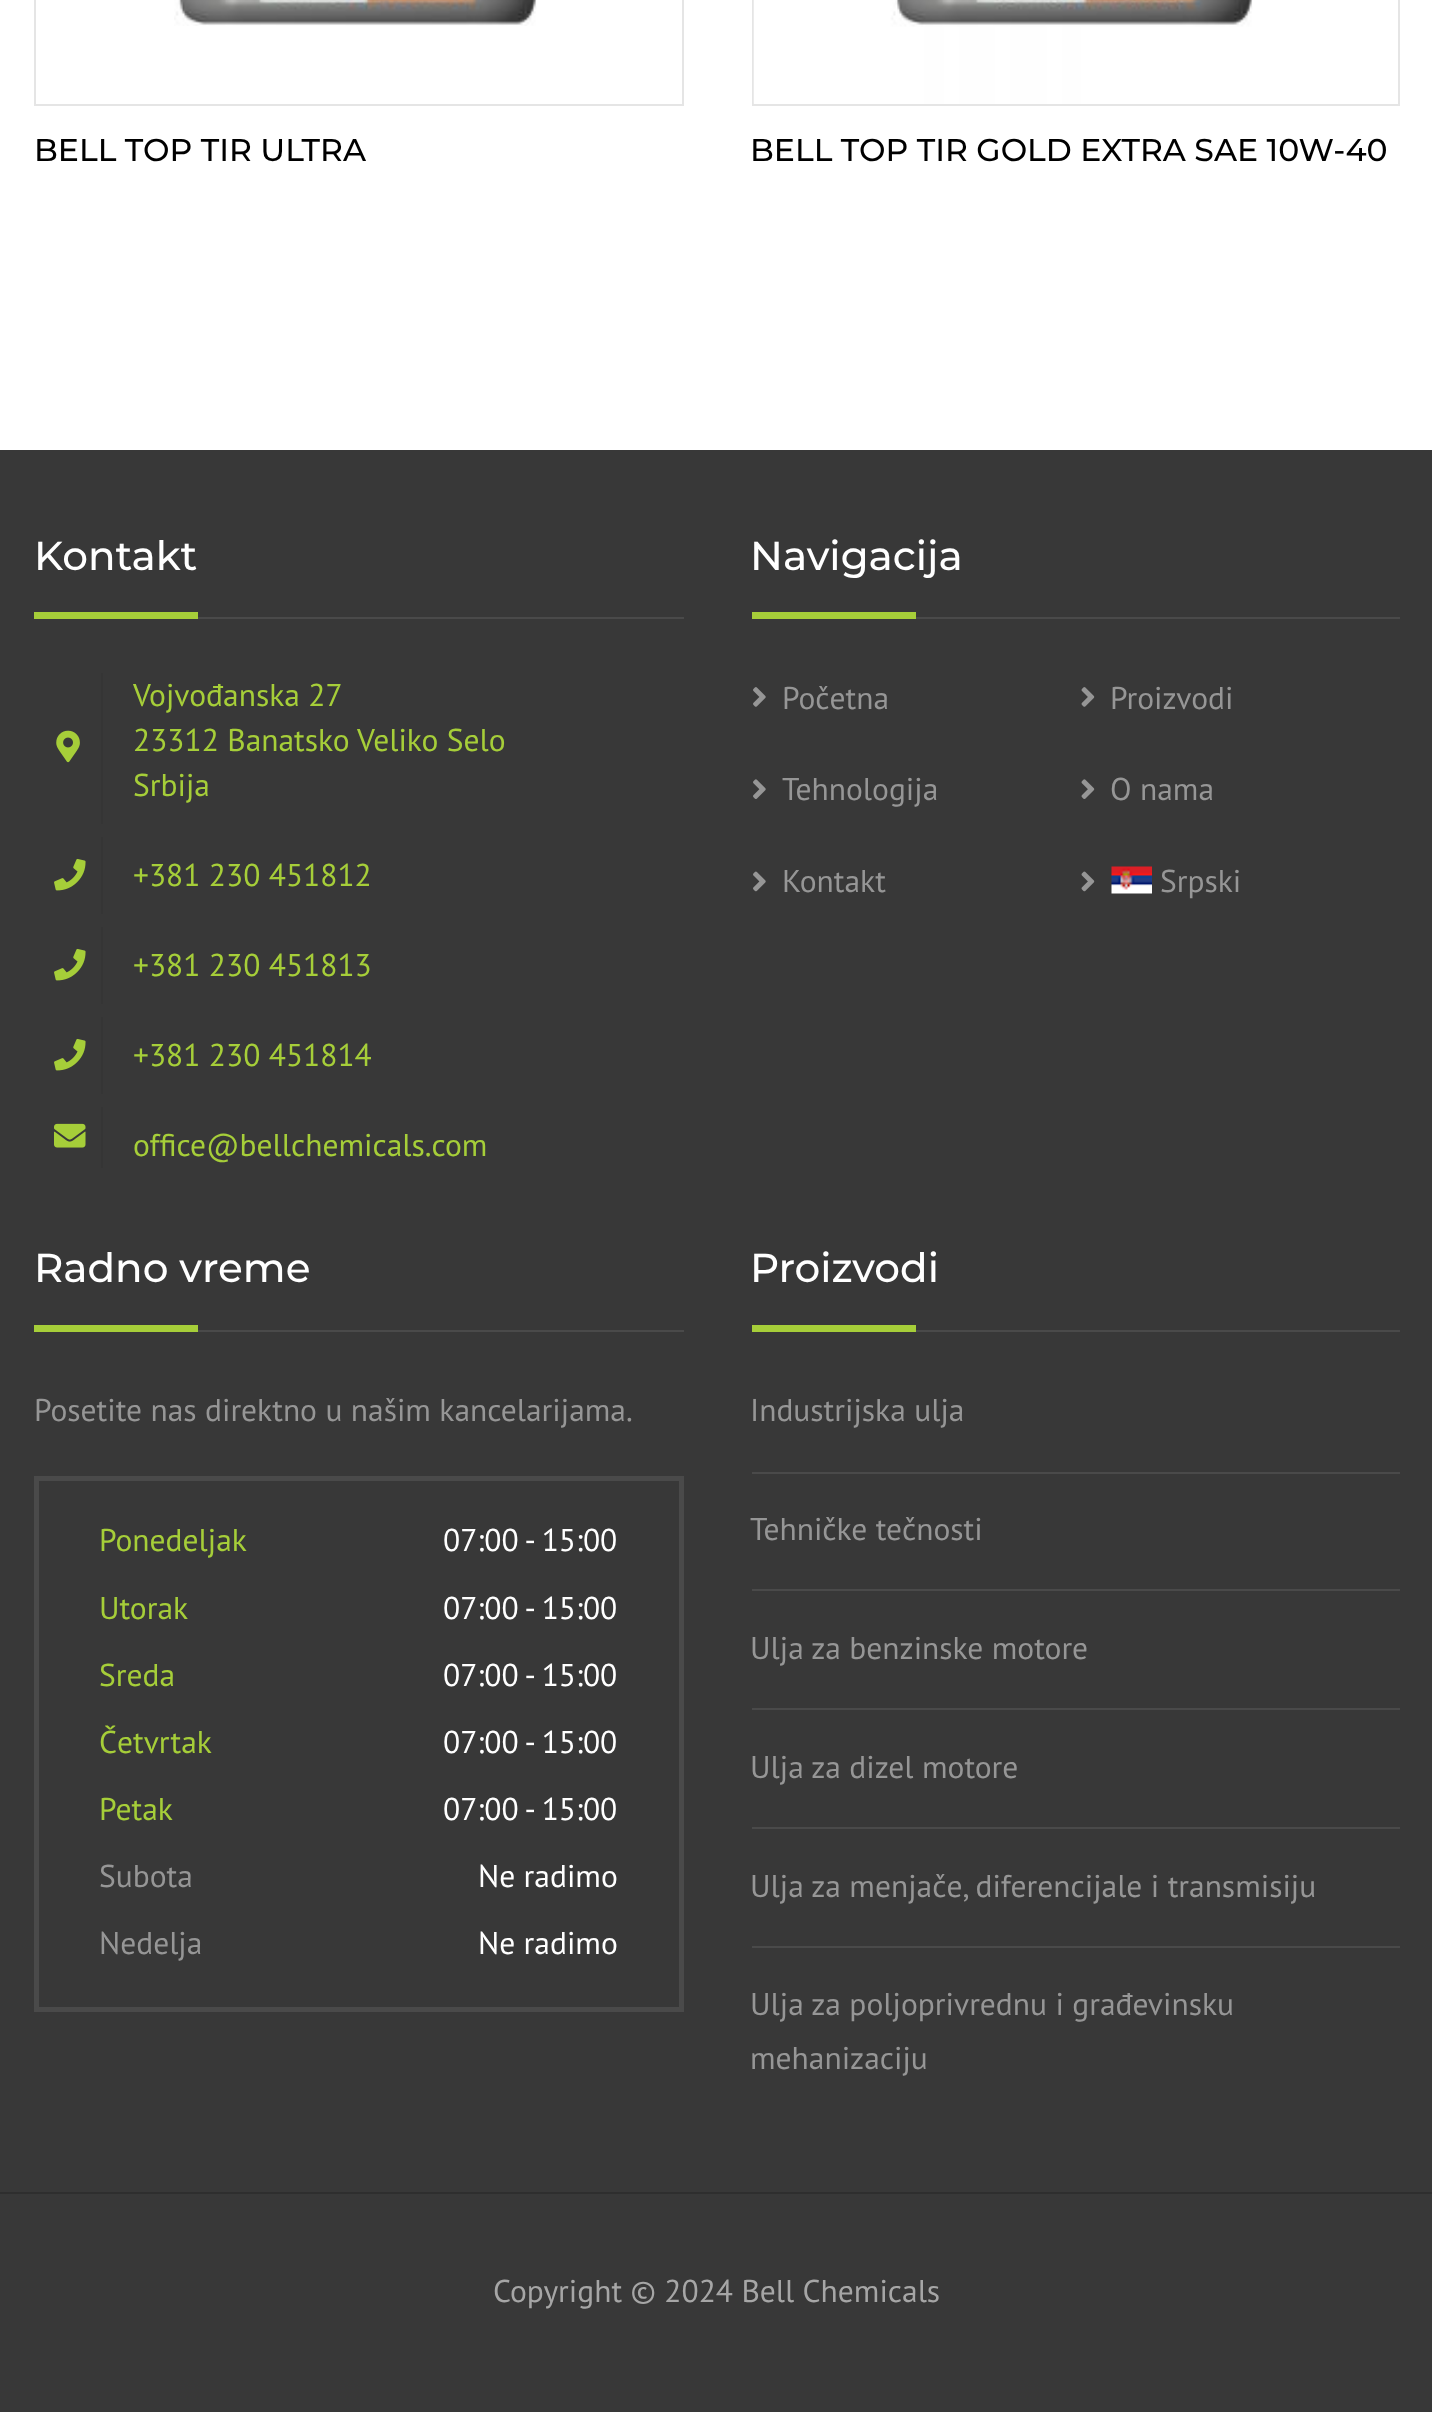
<svg xmlns="http://www.w3.org/2000/svg" width="1432" height="2412">
	<rect width="100%" height="100%" fill="#FFFFFF" />
	<rect x="35" y="-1" width="648" height="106" fill="none" stroke="#E5E5E5" stroke-width="2" />
	<image x="174" y="0" width="363" height="26" href="assets/img1.png" />
	<text x="34" y="161" font-family="Montserrat" font-size="31.5" font-weight="500" fill="#000000">BELL TOP TIR ULTRA</text>
	<rect x="753" y="-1" width="646" height="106" fill="none" stroke="#E5E5E5" stroke-width="2" />
	<image x="753" y="0" width="500" height="104" href="assets/img2.png" />
	<text x="750" y="161" font-family="Montserrat" font-size="31.5" font-weight="500" fill="#000000">BELL TOP TIR GOLD EXTRA SAE 10W-40</text>
	<rect x="0" y="450" width="1432" height="1962" fill="#383838" />
	<rect x="198" y="617" width="486" height="2" fill="#4A4A4A" />
	<text x="34" y="570" font-family="Montserrat" font-size="40.5" font-weight="500" fill="#FFFFFF">Kontakt</text>
	<rect x="34" y="612" width="164" height="7" fill="#A6CE39" />
	<rect x="101" y="673" width="2" height="151" fill="#353535" />
	<text x="133" y="706" font-family="PT Sans" font-size="31.5" fill="#A6CE39">Vojvođanska 27</text>
	<image x="56" y="730" width="24" height="33" href="assets/img3.png" />
	<g font-family="PT Sans" font-size="31.5" fill="#A6CE39">
		<text x="133" y="751">23312 Banatsko Veliko Selo</text>
		<text x="133" y="796">Srbija</text>
	</g>
	<image x="54" y="858" width="32" height="33" href="assets/img4.png" />
	<rect x="101" y="837" width="2" height="77" fill="#353535" />
	<text x="133" y="886" font-family="PT Sans" font-size="31.5" fill="#A6CE39">+381 230 451812</text>
	<image x="54" y="948" width="32" height="33" href="assets/img4.png" />
	<rect x="101" y="927" width="2" height="77" fill="#353535" />
	<text x="133" y="976" font-family="PT Sans" font-size="31.5" fill="#A6CE39">+381 230 451813</text>
	<image x="54" y="1038" width="32" height="33" href="assets/img4.png" />
	<rect x="101" y="1017" width="2" height="77" fill="#353535" />
	<text x="133" y="1066" font-family="PT Sans" font-size="31.5" fill="#A6CE39">+381 230 451814</text>
	<image x="54" y="1123" width="32" height="25" href="assets/img5.png" />
	<rect x="101" y="1107" width="2" height="61" fill="#353535" />
	<text x="133" y="1156" font-family="PT Sans" font-size="31.5" fill="#A6CE39">office@bellchemicals.com</text>
	<rect x="916" y="617" width="484" height="2" fill="#4A4A4A" />
	<text x="750" y="570" font-family="Montserrat" font-size="40.5" font-weight="500" fill="#FFFFFF">Navigacija</text>
	<rect x="752" y="612" width="164" height="7" fill="#A6CE39" />
	<image x="753" y="687" width="13" height="20" href="assets/img6.png" />
	<text x="782" y="709" font-family="PT Sans" font-size="31.5" fill="#969696">Početna</text>
	<image x="1081" y="687" width="14" height="20" href="assets/img7.png" />
	<text x="1110" y="709" font-family="PT Sans" font-size="31.5" fill="#969696">Proizvodi</text>
	<image x="753" y="779" width="13" height="20" href="assets/img8.png" />
	<text x="782" y="800" font-family="PT Sans" font-size="31.5" fill="#969696">Tehnologija</text>
	<image x="1081" y="779" width="14" height="20" href="assets/img9.png" />
	<text x="1110" y="800" font-family="PT Sans" font-size="31.5" fill="#969696">O nama</text>
	<image x="753" y="871" width="13" height="21" href="assets/img10.png" />
	<text x="782" y="892" font-family="PT Sans" font-size="31.5" fill="#969696">Kontakt</text>
	<image x="1081" y="871" width="14" height="21" href="assets/img11.png" />
	<image x="1111" y="866" width="41" height="28" href="assets/img12.png" />
	<text x="1160" y="892" font-family="PT Sans" font-size="31.5" fill="#969696">Srpski</text>
	<rect x="198" y="1330" width="486" height="2" fill="#4A4A4A" />
	<text x="34" y="1282" font-family="Montserrat" font-size="40.5" font-weight="500" fill="#FFFFFF">Radno vreme</text>
	<rect x="34" y="1325" width="164" height="7" fill="#A6CE39" />
	<text x="34" y="1421" font-family="PT Sans" font-size="31.5" fill="#969696">Posetite nas direktno u našim kancelarijama.</text>
	<rect x="36.5" y="1478.5" width="645" height="531" fill="none" stroke="#4A4A4A" stroke-width="5" />
	<text x="99" y="1551" font-family="PT Sans" font-size="31.5" fill="#A6CE39">Ponedeljak</text>
	<text x="443" y="1551" font-family="PT Sans" font-size="31.5" fill="#FFFFFF">07:00 - 15:00</text>
	<text x="99" y="1619" font-family="PT Sans" font-size="31.5" fill="#A6CE39">Utorak</text>
	<text x="443" y="1619" font-family="PT Sans" font-size="31.5" fill="#FFFFFF">07:00 - 15:00</text>
	<text x="99" y="1686" font-family="PT Sans" font-size="31.5" fill="#A6CE39">Sreda</text>
	<text x="443" y="1686" font-family="PT Sans" font-size="31.5" fill="#FFFFFF">07:00 - 15:00</text>
	<text x="99" y="1753" font-family="PT Sans" font-size="31.5" fill="#A6CE39">Četvrtak</text>
	<text x="443" y="1753" font-family="PT Sans" font-size="31.5" fill="#FFFFFF">07:00 - 15:00</text>
	<text x="99" y="1820" font-family="PT Sans" font-size="31.5" fill="#A6CE39">Petak</text>
	<text x="443" y="1820" font-family="PT Sans" font-size="31.5" fill="#FFFFFF">07:00 - 15:00</text>
	<text x="99" y="1887" font-family="PT Sans" font-size="31.5" fill="#969696">Subota</text>
	<text x="478" y="1887" font-family="PT Sans" font-size="31.5" fill="#FFFFFF">Ne radimo</text>
	<text x="99" y="1954" font-family="PT Sans" font-size="31.5" fill="#969696">Nedelja</text>
	<text x="478" y="1954" font-family="PT Sans" font-size="31.5" fill="#FFFFFF">Ne radimo</text>
	<rect x="916" y="1330" width="484" height="2" fill="#4A4A4A" />
	<text x="750" y="1282" font-family="Montserrat" font-size="40.5" font-weight="500" fill="#FFFFFF">Proizvodi</text>
	<rect x="752" y="1325" width="164" height="7" fill="#A6CE39" />
	<rect x="752" y="1472" width="648" height="2" fill="#4A4A4A" />
	<text x="750" y="1421" font-family="PT Sans" font-size="31.5" fill="#969696">Industrijska ulja</text>
	<rect x="752" y="1589" width="648" height="2" fill="#4A4A4A" />
	<text x="750" y="1540" font-family="PT Sans" font-size="31.5" fill="#969696">Tehničke tečnosti</text>
	<rect x="752" y="1708" width="648" height="2" fill="#4A4A4A" />
	<text x="750" y="1659" font-family="PT Sans" font-size="31.5" fill="#969696">Ulja za benzinske motore</text>
	<rect x="752" y="1827" width="648" height="2" fill="#4A4A4A" />
	<text x="750" y="1778" font-family="PT Sans" font-size="31.5" fill="#969696">Ulja za dizel motore</text>
	<rect x="752" y="1946" width="648" height="2" fill="#4A4A4A" />
	<g font-family="PT Sans" font-size="31.5" fill="#969696">
		<text x="750" y="1897">Ulja za menjače, diferencijale i transmisiju</text>
		<text x="750" y="2015">Ulja za poljoprivrednu i građevinsku</text>
		<text x="750" y="2069">mehanizaciju</text>
	</g>
	<rect x="0" y="2192" width="1432" height="2" fill="#2E2E2E" />
	<text x="493" y="2302" font-family="PT Sans" font-size="31.5" fill="#A6A6A6">Copyright © 2024 Bell Chemicals</text>
</svg>
